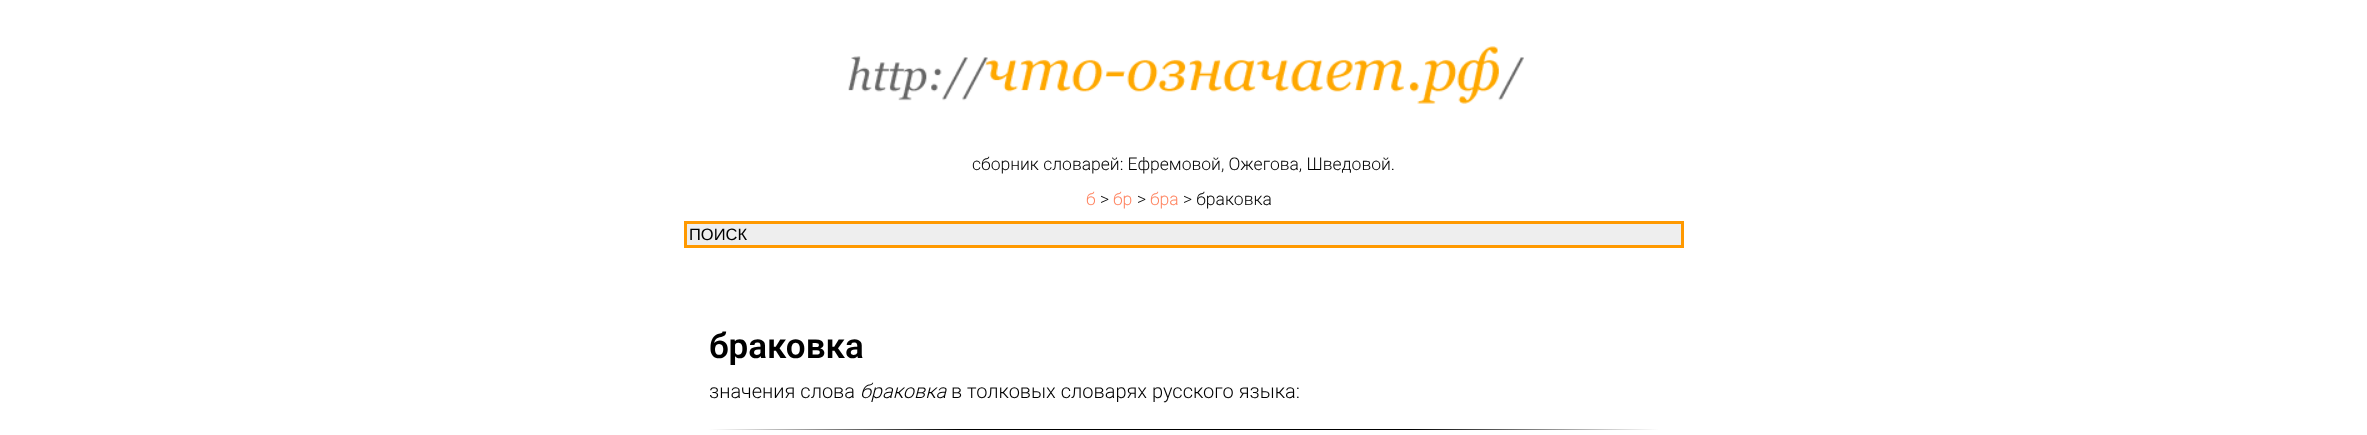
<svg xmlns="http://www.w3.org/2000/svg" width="2367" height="435">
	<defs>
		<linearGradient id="g1" gradientUnits="userSpaceOnUse" x1="959" y1="429" x2="709" y2="429"><stop offset="0" stop-color="#000000" /><stop offset="1" stop-color="#FFFFFF" /></linearGradient>
		<linearGradient id="g2" gradientUnits="userSpaceOnUse" x1="1409" y1="429" x2="1659" y2="429"><stop offset="0" stop-color="#000000" /><stop offset="1" stop-color="#FFFFFF" /></linearGradient>
	</defs>
	<rect width="100%" height="100%" fill="#FFFFFF" />
	<image x="848" y="46" width="676" height="58" href="assets/img1.png" />
	<text x="972" y="170" font-family="Roboto" font-size="17.5" font-weight="300" fill="#000000">сборник словарей: Ефремовой, Ожегова, Шведовой.</text>
	<text x="1086" y="205" font-family="Roboto" font-size="17.5" font-weight="300" fill="#FF8562">б</text>
	<text x="1100" y="205" font-family="Roboto" font-size="17.5" font-weight="300" fill="#000000">&gt;</text>
	<text x="1113" y="205" font-family="Roboto" font-size="17.5" font-weight="300" fill="#FF8562">бр</text>
	<text x="1137" y="205" font-family="Roboto" font-size="17.5" font-weight="300" fill="#000000">&gt;</text>
	<text x="1150" y="205" font-family="Roboto" font-size="17.5" font-weight="300" fill="#FF8562">бра</text>
	<text x="1183" y="205" font-family="Roboto" font-size="17.5" font-weight="300" fill="#000000">&gt; браковка</text>
	<rect x="685.5" y="222.5" width="997" height="24" fill="#EEEEEE" stroke="#FF9900" stroke-width="3" />
	<text x="689" y="240" font-family="Liberation Sans" font-size="16.5" fill="#000000">ПОИСК</text>
	<text x="709" y="358" font-family="Roboto" font-size="35" font-weight="600" fill="#000000">браковка</text>
	<text x="709" y="398" font-family="Roboto" font-size="20" font-weight="300" fill="#000000">значения слова</text>
	<text x="860" y="398" font-family="Roboto" font-size="20" font-weight="300" font-style="italic" fill="#000000">браковка</text>
	<text x="951" y="398" font-family="Roboto" font-size="20" font-weight="300" fill="#000000">в толковых словарях русского языка:</text>
	<rect x="709" y="429" width="250" height="1" fill="url(#g1)" />
	<rect x="959" y="429" width="450" height="1" fill="#000000" />
	<rect x="1409" y="429" width="250" height="1" fill="url(#g2)" />
</svg>
